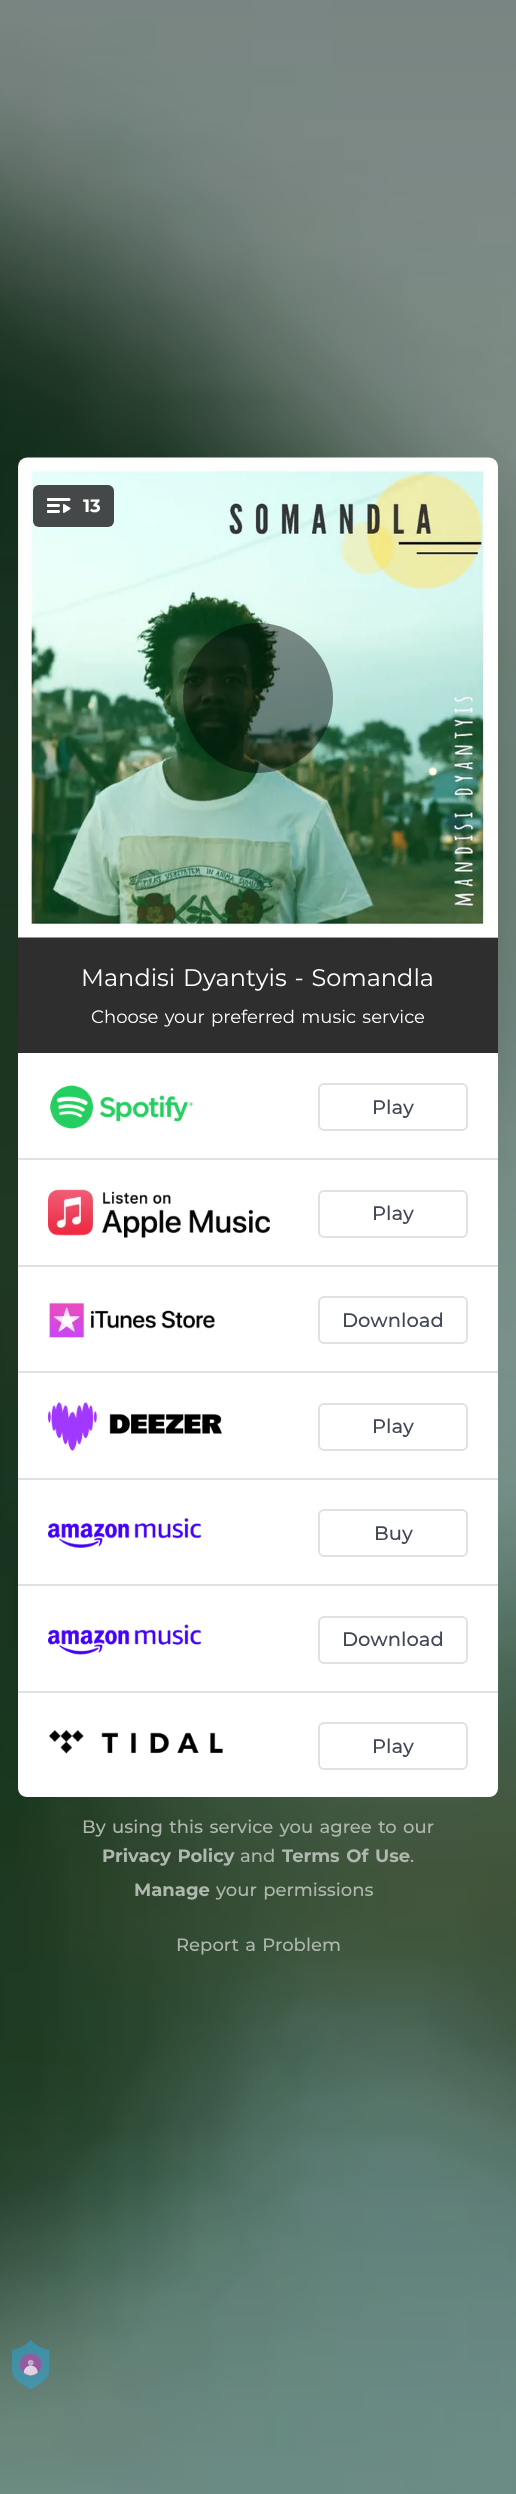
<svg xmlns="http://www.w3.org/2000/svg" width="516" height="2494">
	<rect width="100%" height="100%" fill="#FFFFFF" />
	<image x="0" y="0" width="516" height="2494" href="assets/img1.png" />
	<image x="17" y="457" width="482" height="481" href="assets/img2.png" />
	<rect x="33" y="485" width="81" height="42" rx="6" fill="#282828" fill-opacity="0.85" />
	<image x="47" y="498" width="24" height="15" href="assets/img3.png" />
	<text x="83" y="512" font-family="Montserrat" font-size="18" font-weight="700" fill="#FFFFFF">13</text>
	<circle cx="258" cy="698" r="75" fill="#000000" fill-opacity="0.45" />
	<rect x="18" y="938" width="480" height="115" fill="#2E2E2E" />
	<text x="81" y="986" word-spacing="1.5" font-family="Montserrat" font-size="24" fill="#FFFFFF">Mandisi Dyantyis - Somandla</text>
	<text x="91" y="1023" word-spacing="1.5" font-family="Montserrat" font-size="18" fill="#FFFFFF">Choose your preferred music service</text>
	<path d="M18 1053H498V1788C498 1793 494 1797 489 1797H27C22 1797 18 1793 18 1788Z" fill="#FFFFFF" />
	<rect x="18" y="1158" width="480" height="2" fill="#E1E1E4" />
	<image x="49" y="1085" width="145" height="44" href="assets/img4.png" />
	<rect x="319" y="1084" width="148" height="46" rx="5" fill="none" stroke="#E1E1E4" stroke-width="2" />
	<text x="372" y="1114" font-family="Montserrat" font-size="19.5" font-weight="500" fill="#414754">Play</text>
	<rect x="18" y="1265" width="480" height="2" fill="#E1E1E4" />
	<image x="48" y="1189" width="222" height="49" href="assets/img5.png" />
	<rect x="319" y="1191" width="148" height="46" rx="5" fill="none" stroke="#E1E1E4" stroke-width="2" />
	<text x="372" y="1220" font-family="Montserrat" font-size="19.5" font-weight="500" fill="#414754">Play</text>
	<rect x="18" y="1371" width="480" height="2" fill="#E1E1E4" />
	<image x="49" y="1302" width="166" height="36" href="assets/img6.png" />
	<rect x="319" y="1297" width="148" height="46" rx="5" fill="none" stroke="#E1E1E4" stroke-width="2" />
	<text x="342" y="1327" font-family="Montserrat" font-size="19.5" font-weight="500" fill="#414754">Download</text>
	<rect x="18" y="1478" width="480" height="2" fill="#E1E1E4" />
	<image x="48" y="1402" width="174" height="49" href="assets/img7.png" />
	<rect x="319" y="1404" width="148" height="46" rx="5" fill="none" stroke="#E1E1E4" stroke-width="2" />
	<text x="372" y="1433" font-family="Montserrat" font-size="19.5" font-weight="500" fill="#414754">Play</text>
	<rect x="18" y="1584" width="480" height="2" fill="#E1E1E4" />
	<image x="48" y="1518" width="153" height="30" href="assets/img8.png" />
	<rect x="319" y="1510" width="148" height="46" rx="5" fill="none" stroke="#E1E1E4" stroke-width="2" />
	<text x="374" y="1540" font-family="Montserrat" font-size="19.5" font-weight="500" fill="#414754">Buy</text>
	<rect x="18" y="1691" width="480" height="2" fill="#E1E1E4" />
	<image x="48" y="1624" width="153" height="31" href="assets/img9.png" />
	<rect x="319" y="1617" width="148" height="46" rx="5" fill="none" stroke="#E1E1E4" stroke-width="2" />
	<text x="342" y="1646" font-family="Montserrat" font-size="19.5" font-weight="500" fill="#414754">Download</text>
	<image x="48" y="1729" width="175" height="25" href="assets/img10.png" />
	<rect x="319" y="1723" width="148" height="46" rx="5" fill="none" stroke="#E1E1E4" stroke-width="2" />
	<text x="372" y="1753" font-family="Montserrat" font-size="19.5" font-weight="500" fill="#414754">Play</text>
	<text x="82" y="1833" word-spacing="1.5" font-family="Montserrat" font-size="18" font-weight="500" fill="#AFB8AF">By using this service you agree to our</text>
	<text x="102" y="1862" word-spacing="1.5" font-family="Montserrat" font-size="18" font-weight="700" fill="#AFB8AF">Privacy Policy</text>
	<text x="240" y="1862" font-family="Montserrat" font-size="18" font-weight="500" fill="#AFB8AF">and</text>
	<text x="282" y="1862" word-spacing="1.5" font-family="Montserrat" font-size="18" font-weight="700" fill="#AFB8AF">Terms Of Use</text>
	<text x="410" y="1862" font-family="Montserrat" font-size="18" font-weight="500" fill="#AFB8AF">.</text>
	<text x="134" y="1896" font-family="Montserrat" font-size="18" font-weight="700" fill="#AFB8AF">Manage</text>
	<g font-family="Montserrat" font-size="18" font-weight="500" fill="#AFB8AF">
		<text x="216" y="1896" word-spacing="1.5">your permissions</text>
		<text x="176" y="1951" word-spacing="1.5">Report a Problem</text>
	</g>
	<image x="12" y="2340" width="38" height="50" href="assets/img11.png" />
</svg>
